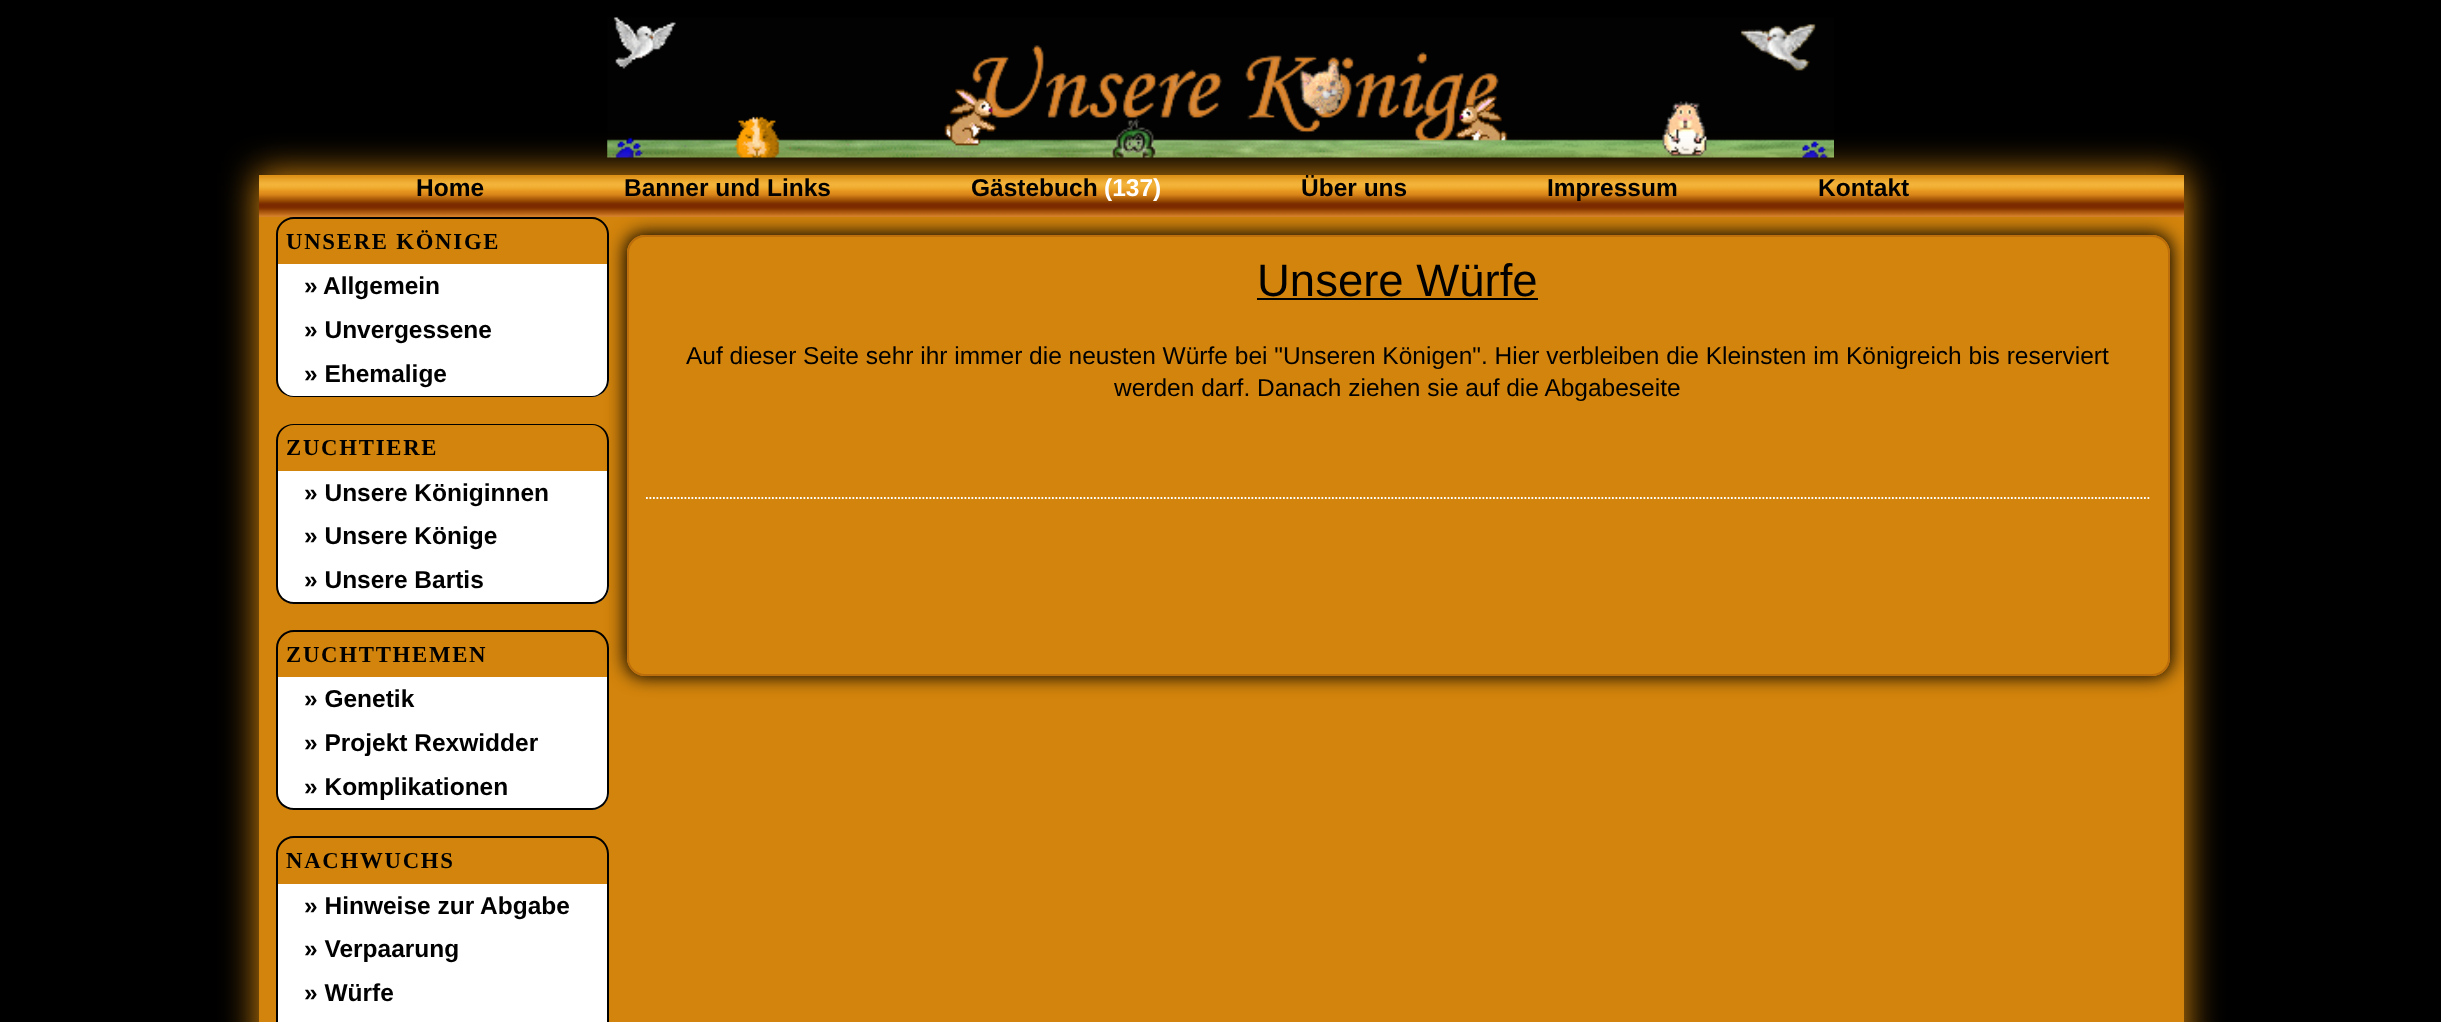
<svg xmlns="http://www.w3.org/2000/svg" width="2441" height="1022">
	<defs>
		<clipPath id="clip1"><path d="M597 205H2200V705H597ZM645 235H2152C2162 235 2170 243 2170 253V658C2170 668 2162 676 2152 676H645C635 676 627 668 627 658V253C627 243 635 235 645 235Z" clip-rule="evenodd" /></clipPath>
	</defs>
	<rect width="100%" height="100%" fill="#000000" />
	<image x="607" y="17" width="1227" height="141" href="assets/img1.png" />
	<rect x="257" y="173" width="1929" height="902" fill="#D3840C" filter="blur(17.5px)" />
	<rect x="259" y="217" width="1925" height="805" fill="#D3840C" />
	<path d="M294 217H592C601 217 609 225 609 234V264H276V234C276 225 284 217 294 217ZM294 219H592C600 219 607 226 607 234V264H278V234C278 226 285 219 294 219Z" fill="#000000" fill-rule="evenodd" />
	<path d="M277 264H609V379C609 389 601 397 591 397H295C285 397 277 389 277 379Z" fill="#FFFFFF" />
	<path d="M276 264H609V380C609 389 601 397 592 397H294C284 397 276 389 276 380ZM278 264H607V380C607 388 600 396 592 396H294C285 396 278 388 278 380Z" fill="#000000" fill-rule="evenodd" />
	<path d="M294 424H592C601 424 609 431 609 441V471H276V441C276 431 284 424 294 424ZM294 425H592C600 425 607 432 607 441V471H278V441C278 432 285 425 294 425Z" fill="#000000" fill-rule="evenodd" />
	<path d="M277 471H609V586C609 596 601 604 591 604H295C285 604 277 596 277 586Z" fill="#FFFFFF" />
	<path d="M276 471H609V586C609 596 601 604 592 604H294C284 604 276 596 276 586ZM278 471H607V586C607 595 600 602 592 602H294C285 602 278 595 278 586Z" fill="#000000" fill-rule="evenodd" />
	<path d="M294 630H592C601 630 609 638 609 648V677H276V648C276 638 284 630 294 630ZM294 632H592C600 632 607 639 607 648V677H278V648C278 639 285 632 294 632Z" fill="#000000" fill-rule="evenodd" />
	<path d="M277 677H609V792C609 802 601 810 591 810H295C285 810 277 802 277 792Z" fill="#FFFFFF" />
	<path d="M276 677H609V793C609 802 601 810 592 810H294C284 810 276 802 276 793ZM278 677H607V793C607 801 600 808 592 808H294C285 808 278 801 278 793Z" fill="#000000" fill-rule="evenodd" />
	<g clip-path="url(#clip1)">
		<rect x="625" y="233" width="1547" height="444" rx="19" fill="#000000" filter="blur(9px)" />
	</g>
	<image x="259" y="175" width="1925" height="42" href="assets/img2.png" />
	<g font-family="Liberation Sans" font-size="24.5" font-weight="700" fill="#000000">
		<text x="416" y="196">Home</text>
		<text x="624" y="196">Banner und Links</text>
		<text x="971" y="196">Gästebuch</text>
	</g>
	<text x="1104" y="196" font-family="Liberation Sans" font-size="24.5" font-weight="700" fill="#FFFFFF">(137)</text>
	<g font-family="Liberation Sans" font-size="24.5" font-weight="700" fill="#000000">
		<text x="1301" y="196">Über uns</text>
		<text x="1547" y="196">Impressum</text>
		<text x="1818" y="196">Kontakt</text>
	</g>
	<text x="286" y="249" font-family="Liberation Serif" font-size="22.75" font-weight="700" letter-spacing="1.75" fill="#000000">UNSERE KÖNIGE</text>
	<g font-family="Liberation Sans" font-size="24.5" font-weight="700" fill="#000000">
		<text x="304" y="294">»</text>
		<text x="323" y="294">Allgemein</text>
		<text x="304" y="338">» Unvergessene</text>
		<text x="304" y="382">» Ehemalige</text>
	</g>
	<text x="286" y="455" font-family="Liberation Serif" font-size="22.75" font-weight="700" letter-spacing="1.75" fill="#000000">ZUCHTIERE</text>
	<g font-family="Liberation Sans" font-size="24.5" font-weight="700" fill="#000000">
		<text x="304" y="501">» Unsere Königinnen</text>
		<text x="304" y="544">» Unsere Könige</text>
		<text x="304" y="588">» Unsere Bartis</text>
	</g>
	<text x="286" y="662" font-family="Liberation Serif" font-size="22.75" font-weight="700" letter-spacing="1.75" fill="#000000">ZUCHTTHEMEN</text>
	<g font-family="Liberation Sans" font-size="24.5" font-weight="700" fill="#000000">
		<text x="304" y="707">» Genetik</text>
		<text x="304" y="751">» Projekt Rexwidder</text>
		<text x="304" y="795">» Komplikationen</text>
	</g>
	<path d="M294 836H592C601 836 609 844 609 854V884H276V854C276 844 284 836 294 836ZM294 838H592C600 838 607 845 607 854V884H278V854C278 845 285 838 294 838Z" fill="#000000" fill-rule="evenodd" />
	<text x="286" y="868" font-family="Liberation Serif" font-size="22.75" font-weight="700" letter-spacing="1.75" fill="#000000">NACHWUCHS</text>
	<rect x="278" y="884" width="329" height="138" fill="#FFFFFF" />
	<path d="M276 884H609V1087C609 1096 601 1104 592 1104H294C284 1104 276 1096 276 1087ZM278 884H607V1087C607 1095 600 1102 592 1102H294C285 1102 278 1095 278 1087Z" fill="#000000" fill-rule="evenodd" />
	<g font-family="Liberation Sans" font-size="24.5" font-weight="700" fill="#000000">
		<text x="304" y="914">» Hinweise zur Abgabe</text>
		<text x="304" y="957">» Verpaarung</text>
		<text x="304" y="1001">» Würfe</text>
	</g>
	<rect x="628" y="236" width="1541" height="439" rx="17" fill="none" stroke="#BB6E0B" stroke-width="2" />
	<text x="1257" y="296" font-family="Liberation Sans" font-size="45.5" fill="#000000">Unsere Würfe</text>
	<rect x="1257" y="298" width="281" height="2" fill="#000000" />
	<g font-family="Liberation Sans" font-size="24.5" fill="#000000">
		<text x="686" y="364">Auf dieser Seite sehr ihr immer die neusten Würfe bei "Unseren Königen". Hier verbleiben die Kleinsten im Königreich bis reserviert</text>
		<text x="1114" y="396">werden darf. Danach ziehen sie auf die Abgabeseite</text>
	</g>
	<path d="M646 498H2151" fill="none" stroke="#FFFFFF" stroke-width="1.8" stroke-dasharray="1.75 1.75" />
</svg>
